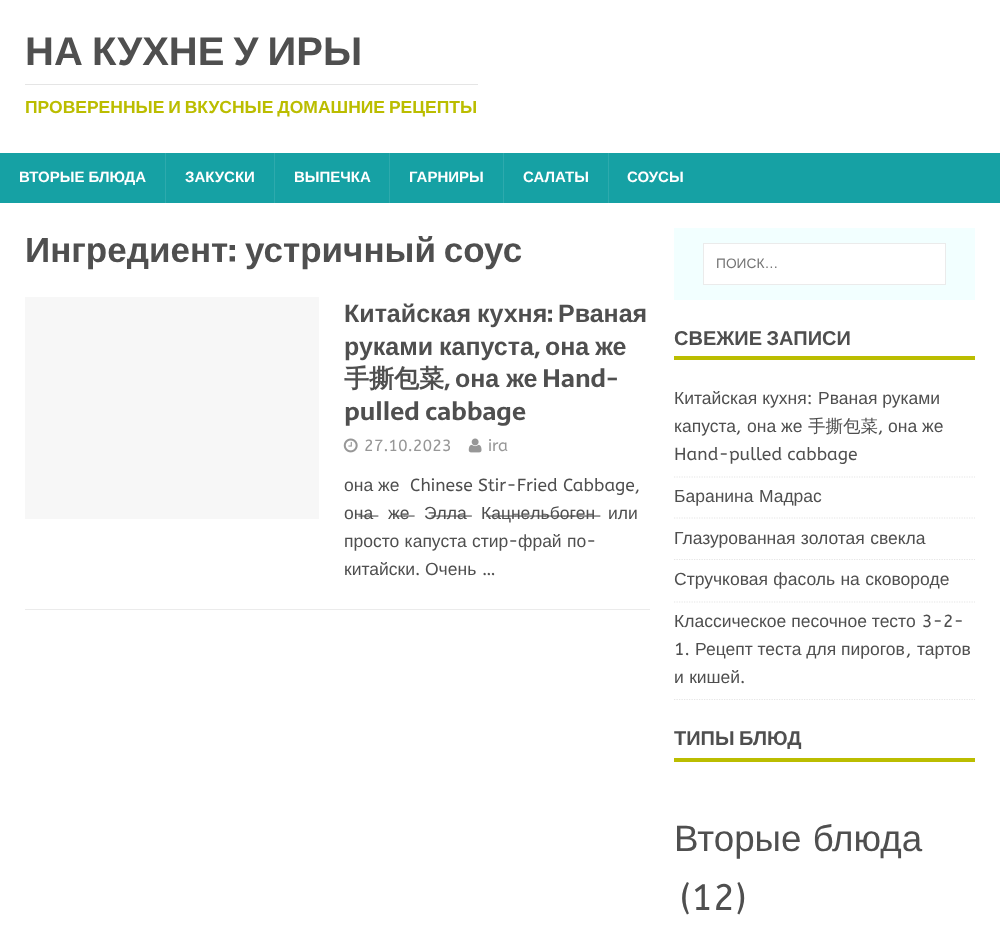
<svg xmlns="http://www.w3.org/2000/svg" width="1000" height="944">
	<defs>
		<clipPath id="clip1"><rect x="674" y="325" width="301" height="375" /></clipPath>
	</defs>
	<rect width="100%" height="100%" fill="#FFFFFF" />
	<text x="25" y="65" word-spacing="-2" font-family="Liberation Sans" font-size="40" font-weight="700" fill="#4F4F4F">НА КУХНЕ У ИРЫ</text>
	<rect x="25" y="84" width="453" height="1" fill="#E5E5E5" />
	<text x="25" y="113" word-spacing="-1" font-family="Liberation Sans" font-size="17.5" font-weight="700" fill="#BBBD00">ПРОВЕРЕННЫЕ И ВКУСНЫЕ ДОМАШНИЕ РЕЦЕПТЫ</text>
	<rect x="0" y="153" width="1000" height="50" fill="#16A1A4" />
	<text x="19" y="182" font-family="Liberation Sans" font-size="15" font-weight="700" fill="#FFFFFF">ВТОРЫЕ БЛЮДА</text>
	<rect x="165" y="153" width="1" height="50" fill="#2DAAAD" />
	<text x="185" y="182" font-family="Liberation Sans" font-size="15" font-weight="700" fill="#FFFFFF">ЗАКУСКИ</text>
	<rect x="274" y="153" width="1" height="50" fill="#2DAAAD" />
	<text x="294" y="182" font-family="Liberation Sans" font-size="15" font-weight="700" fill="#FFFFFF">ВЫПЕЧКА</text>
	<rect x="389" y="153" width="1" height="50" fill="#2DAAAD" />
	<text x="409" y="182" font-family="Liberation Sans" font-size="15" font-weight="700" fill="#FFFFFF">ГАРНИРЫ</text>
	<rect x="503" y="153" width="1" height="50" fill="#2DAAAD" />
	<text x="523" y="182" font-family="Liberation Sans" font-size="15" font-weight="700" fill="#FFFFFF">САЛАТЫ</text>
	<rect x="608" y="153" width="1" height="50" fill="#2DAAAD" />
	<text x="627" y="182" font-family="Liberation Sans" font-size="15" font-weight="700" fill="#FFFFFF">СОУСЫ</text>
	<text x="25" y="262" font-family="Liberation Sans" font-size="35" font-weight="700" fill="#4F4F4F">Ингредиент</text>
	<text x="228" y="262" font-family="Sarala" font-size="35" font-weight="700" fill="#4F4F4F">:</text>
	<text x="245" y="262" word-spacing="-2" font-family="Liberation Sans" font-size="35" font-weight="700" fill="#4F4F4F">устричный соус</text>
	<rect x="25" y="609" width="625" height="1" fill="#EBEBEB" />
	<rect x="25" y="297" width="294" height="222" fill="#F7F7F7" />
	<text x="344" y="322" word-spacing="-1" font-family="Liberation Sans" font-size="25" font-weight="700" fill="#4F4F4F">Китайская кухня</text>
	<text x="547" y="322" font-family="Sarala" font-size="25" font-weight="700" fill="#4F4F4F">:</text>
	<g font-family="Liberation Sans" font-size="25" font-weight="700" fill="#4F4F4F">
		<text x="558" y="322">Рваная</text>
		<text x="344" y="355" word-spacing="-1">руками капуста</text>
	</g>
	<text x="534" y="355" font-family="Sarala" font-size="25" font-weight="700" fill="#4F4F4F">,</text>
	<text x="545" y="355" word-spacing="-1" font-family="Liberation Sans" font-size="25" font-weight="700" fill="#4F4F4F">она же</text>
	<text x="344" y="387" font-family="WenQuanYi Zen Hei" font-size="25" font-weight="700" fill="#4F4F4F">手撕包菜</text>
	<text x="444" y="387" font-family="Sarala" font-size="25" font-weight="700" fill="#4F4F4F">,</text>
	<text x="455" y="387" font-family="Liberation Sans" font-size="25" font-weight="700" fill="#4F4F4F">она же</text>
	<g font-family="Sarala" font-size="25" font-weight="700" fill="#4F4F4F">
		<text x="542" y="387">Hand-</text>
		<text x="344" y="420">pulled cabbage</text>
	</g>
	<image x="343" y="438" width="15" height="15" href="assets/img1.png" />
	<text x="364" y="451" font-family="ABeeZee" font-size="16.25" fill="#979797">27.10.2023</text>
	<image x="468" y="438" width="14" height="15" href="assets/img2.png" />
	<text x="488" y="451" font-family="ABeeZee" font-size="16.25" fill="#979797">ira</text>
	<g font-family="Liberation Sans" font-size="17.5" fill="#4F4F4F">
		<text x="344" y="491">она</text>
		<text x="378" y="491">же</text>
	</g>
	<text x="410" y="491" font-family="ABeeZee" font-size="17.5" fill="#4F4F4F">Chinese Stir-Fried Cabbage,</text>
	<g font-family="Liberation Sans" font-size="17.5" fill="#4F4F4F">
		<text x="344" y="519">он̶а̶</text>
		<text x="388" y="519">ж̶е̶</text>
		<text x="424" y="519">Э̶л̶л̶а̶</text>
		<text x="481" y="519">К̶а̶ц̶н̶е̶л̶ь̶б̶о̶г̶е̶н̶</text>
		<text x="608" y="519">или</text>
		<text x="344" y="547" word-spacing="0.5">просто капуста стир</text>
	</g>
	<text x="508" y="547" font-family="ABeeZee" font-size="17.5" fill="#4F4F4F">-</text>
	<text x="518" y="547" word-spacing="0.5" font-family="Liberation Sans" font-size="17.5" fill="#4F4F4F">фрай по</text>
	<text x="586" y="547" font-family="ABeeZee" font-size="17.5" fill="#4F4F4F">-</text>
	<text x="344" y="575" font-family="Liberation Sans" font-size="17.5" fill="#4F4F4F">китайски</text>
	<text x="415" y="575" font-family="ABeeZee" font-size="17.5" fill="#4F4F4F">.</text>
	<text x="425" y="575" font-family="Liberation Sans" font-size="17.5" fill="#4F4F4F">Очень</text>
	<text x="482" y="575" font-family="ABeeZee" font-size="17.5" fill="#4F4F4F">…</text>
	<rect x="674" y="228" width="301" height="72" fill="#F2FFFF" />
	<rect x="703.5" y="243.5" width="242" height="41" fill="#FFFFFF" stroke="#EBEBEB" />
	<text x="716" y="268" font-family="Liberation Sans" font-size="13.75" fill="#757575">ПОИСК…</text>
	<rect x="674" y="356" width="301" height="4" fill="#BBBD00" />
	<text x="674" y="345" word-spacing="-1" font-family="Liberation Sans" font-size="20" font-weight="700" fill="#4F4F4F">СВЕЖИЕ ЗАПИСИ</text>
	<path d="M674 477H975" fill="none" stroke="#E5E5E5" stroke-width="1.2" stroke-dasharray="1.25 1.25" />
	<text x="674" y="404" font-family="Liberation Sans" font-size="17.5" fill="#4F4F4F">Китайская кухня</text>
	<text x="807" y="404" font-family="ABeeZee" font-size="17.5" fill="#4F4F4F">:</text>
	<g font-family="Liberation Sans" font-size="17.5" fill="#4F4F4F">
		<text x="818" y="404">Рваная руками</text>
		<text x="674" y="432">капуста</text>
	</g>
	<text x="736" y="432" font-family="ABeeZee" font-size="17.5" fill="#4F4F4F">,</text>
	<text x="747" y="432" font-family="Liberation Sans" font-size="17.5" fill="#4F4F4F">она же</text>
	<text x="808" y="432" font-family="WenQuanYi Zen Hei" font-size="17.5" font-weight="500" fill="#4F4F4F">手撕包菜</text>
	<text x="878" y="432" font-family="ABeeZee" font-size="17.5" fill="#4F4F4F">,</text>
	<text x="888" y="432" font-family="Liberation Sans" font-size="17.5" fill="#4F4F4F">она же</text>
	<text x="674" y="460" font-family="ABeeZee" font-size="17.5" fill="#4F4F4F">Hand-pulled cabbage</text>
	<path d="M674 518H975" fill="none" stroke="#E5E5E5" stroke-width="1.2" stroke-dasharray="1.25 1.25" />
	<text x="674" y="502" word-spacing="0.5" font-family="Liberation Sans" font-size="17.5" fill="#4F4F4F">Баранина Мадрас</text>
	<path d="M674 559.5H975" fill="none" stroke="#E5E5E5" stroke-width="1.2" stroke-dasharray="1.25 1.25" />
	<text x="674" y="544" word-spacing="0.5" font-family="Liberation Sans" font-size="17.5" fill="#4F4F4F">Глазурованная золотая свекла</text>
	<path d="M674 602H975" fill="none" stroke="#E5E5E5" stroke-width="1.2" stroke-dasharray="1.25 1.25" />
	<text x="674" y="585" word-spacing="0.5" font-family="Liberation Sans" font-size="17.5" fill="#4F4F4F">Стручковая фасоль на сковороде</text>
	<g clip-path="url(#clip1)">
		<path d="M674 699.5H975" fill="none" stroke="#E5E5E5" stroke-width="1.2" stroke-dasharray="1.25 1.25" />
	</g>
	<text x="674" y="627" font-family="Liberation Sans" font-size="17.5" fill="#4F4F4F">Классическое песочное тесто</text>
	<g font-family="ABeeZee" font-size="17.5" fill="#4F4F4F">
		<text x="922" y="627">3-2-</text>
		<text x="674" y="655">1.</text>
	</g>
	<text x="695" y="655" font-family="Liberation Sans" font-size="17.5" fill="#4F4F4F">Рецепт теста для пирогов</text>
	<text x="906" y="655" font-family="ABeeZee" font-size="17.5" fill="#4F4F4F">,</text>
	<g font-family="Liberation Sans" font-size="17.5" fill="#4F4F4F">
		<text x="917" y="655">тартов</text>
		<text x="674" y="683" word-spacing="0.5">и кишей</text>
	</g>
	<text x="740" y="683" font-family="ABeeZee" font-size="17.5" fill="#4F4F4F">.</text>
	<rect x="674" y="758" width="301" height="4" fill="#BBBD00" />
	<text x="674" y="745" word-spacing="-1" font-family="Liberation Sans" font-size="20" font-weight="700" fill="#4F4F4F">ТИПЫ БЛЮД</text>
	<text x="674" y="851" word-spacing="1" font-family="Liberation Sans" font-size="36.75" fill="#4F4F4F">Вторые блюда</text>
	<text x="680" y="910" font-family="ABeeZee" font-size="36.75" fill="#4F4F4F">(12)</text>
</svg>
